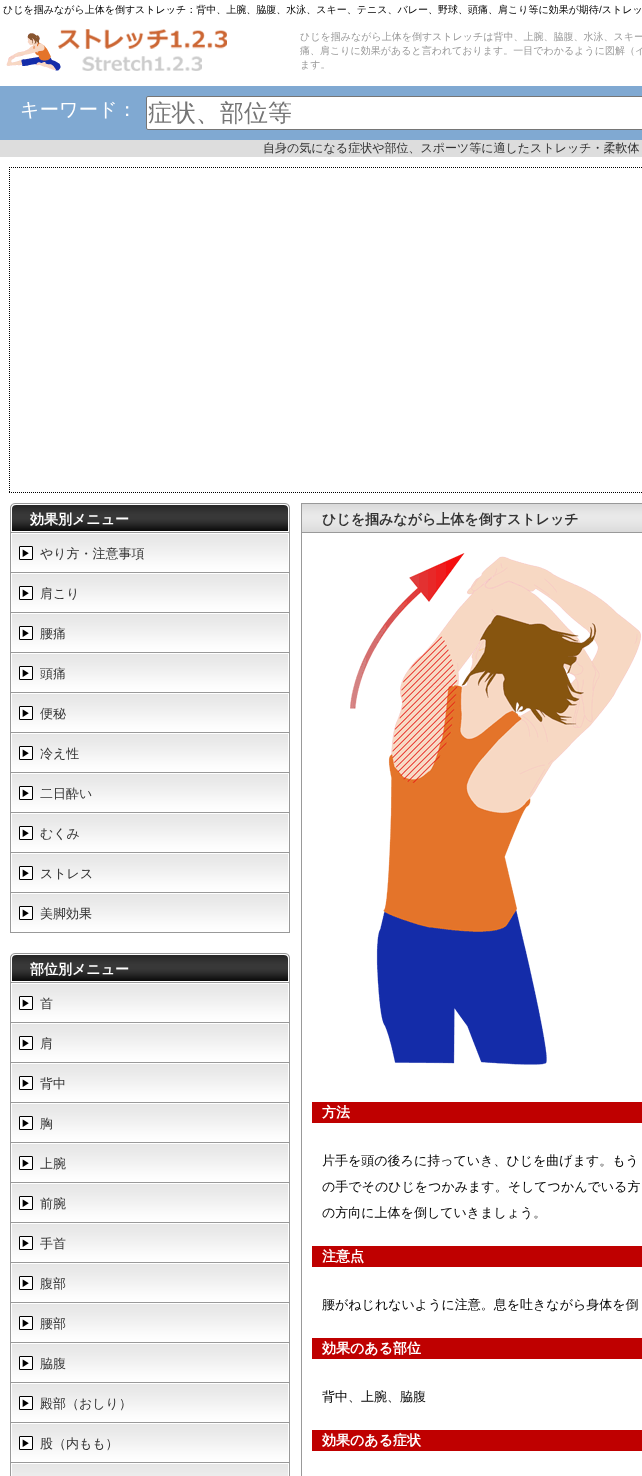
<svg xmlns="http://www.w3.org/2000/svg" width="642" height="1476">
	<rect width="100%" height="100%" fill="#FFFFFF" />
	<text x="3" y="13" font-family="WenQuanYi Zen Hei" font-size="10" font-weight="500" fill="#000000">ひじを掴みながら上体を倒すストレッチ：背中、上腕、脇腹、水泳、スキー、テニス、バレー、野球、頭痛、肩こり等に効果が期待 ストレッ</text>
	<text x="599" y="13" font-family="Liberation Sans" font-size="10" fill="#000000">/</text>
	<image x="6" y="29" width="221" height="42" href="assets/img1.png" />
	<g font-family="WenQuanYi Zen Hei" font-size="10" font-weight="500" fill="#999999">
		<text x="300" y="40">ひじを掴みながら上体を倒すストレッチは背中、上腕、脇腹、水泳、スキー</text>
		<text x="300" y="54">痛、肩こりに効果があると言われております。一目でわかるように図解（イ</text>
		<text x="300" y="68">ます。</text>
	</g>
	<rect x="0" y="86" width="642" height="54" fill="#80A9D2" />
	<text x="20" y="116" font-family="WenQuanYi Zen Hei" font-size="19.25" font-weight="500" fill="#FFFFFF">キーワード：</text>
	<rect x="146.5" y="96.5" width="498" height="33" rx="1.5" fill="#FFFFFF" stroke="#767676" />
	<text x="148" y="121" font-family="WenQuanYi Zen Hei" font-size="24" font-weight="500" fill="#757575">症状、部位等</text>
	<rect x="0" y="140" width="642" height="17" fill="#DDDDDD" />
	<text x="263" y="152" font-family="WenQuanYi Zen Hei" font-size="12" font-weight="500" fill="#333333">自身の気になる症状や部位、スポーツ等に適したストレッチ・柔軟体</text>
	<path d="M9 167.5H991" fill="none" stroke="#000000" stroke-dasharray="1 1" />
	<path d="M9 492.5H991" fill="none" stroke="#000000" stroke-dasharray="1 1" />
	<path d="M9.5 167V493" fill="none" stroke="#000000" stroke-dasharray="1 1" />
	<image x="10" y="503" width="280" height="30" href="assets/img2.png" />
	<text x="30" y="524" font-family="WenQuanYi Zen Hei" font-size="14" font-weight="700" fill="#FFFFFF">効果別メニュー</text>
	<image x="10" y="533" width="280" height="40" href="assets/img3.png" />
	<text x="40" y="558" font-family="WenQuanYi Zen Hei" font-size="13" font-weight="500" fill="#333333">やり方・注意事項</text>
	<image x="10" y="573" width="280" height="40" href="assets/img3.png" />
	<text x="40" y="598" font-family="WenQuanYi Zen Hei" font-size="13" font-weight="500" fill="#333333">肩こり</text>
	<image x="10" y="613" width="280" height="40" href="assets/img3.png" />
	<text x="40" y="638" font-family="WenQuanYi Zen Hei" font-size="13" font-weight="500" fill="#333333">腰痛</text>
	<image x="10" y="653" width="280" height="40" href="assets/img3.png" />
	<text x="40" y="678" font-family="WenQuanYi Zen Hei" font-size="13" font-weight="500" fill="#333333">頭痛</text>
	<image x="10" y="693" width="280" height="40" href="assets/img3.png" />
	<text x="40" y="718" font-family="WenQuanYi Zen Hei" font-size="13" font-weight="500" fill="#333333">便秘</text>
	<image x="10" y="733" width="280" height="40" href="assets/img3.png" />
	<text x="40" y="758" font-family="WenQuanYi Zen Hei" font-size="13" font-weight="500" fill="#333333">冷え性</text>
	<image x="10" y="773" width="280" height="40" href="assets/img3.png" />
	<text x="40" y="798" font-family="WenQuanYi Zen Hei" font-size="13" font-weight="500" fill="#333333">二日酔い</text>
	<image x="10" y="813" width="280" height="40" href="assets/img3.png" />
	<text x="40" y="838" font-family="WenQuanYi Zen Hei" font-size="13" font-weight="500" fill="#333333">むくみ</text>
	<image x="10" y="853" width="280" height="40" href="assets/img3.png" />
	<text x="40" y="878" font-family="WenQuanYi Zen Hei" font-size="13" font-weight="500" fill="#333333">ストレス</text>
	<image x="10" y="893" width="280" height="40" href="assets/img3.png" />
	<text x="40" y="918" font-family="WenQuanYi Zen Hei" font-size="13" font-weight="500" fill="#333333">美脚効果</text>
	<image x="10" y="953" width="280" height="30" href="assets/img2.png" />
	<text x="30" y="974" font-family="WenQuanYi Zen Hei" font-size="14" font-weight="700" fill="#FFFFFF">部位別メニュー</text>
	<image x="10" y="983" width="280" height="40" href="assets/img3.png" />
	<text x="40" y="1008" font-family="WenQuanYi Zen Hei" font-size="13" font-weight="500" fill="#333333">首</text>
	<image x="10" y="1023" width="280" height="40" href="assets/img3.png" />
	<text x="40" y="1048" font-family="WenQuanYi Zen Hei" font-size="13" font-weight="500" fill="#333333">肩</text>
	<image x="10" y="1063" width="280" height="40" href="assets/img3.png" />
	<text x="40" y="1088" font-family="WenQuanYi Zen Hei" font-size="13" font-weight="500" fill="#333333">背中</text>
	<image x="10" y="1103" width="280" height="40" href="assets/img3.png" />
	<text x="40" y="1128" font-family="WenQuanYi Zen Hei" font-size="13" font-weight="500" fill="#333333">胸</text>
	<image x="10" y="1143" width="280" height="40" href="assets/img3.png" />
	<text x="40" y="1168" font-family="WenQuanYi Zen Hei" font-size="13" font-weight="500" fill="#333333">上腕</text>
	<image x="10" y="1183" width="280" height="40" href="assets/img3.png" />
	<text x="40" y="1208" font-family="WenQuanYi Zen Hei" font-size="13" font-weight="500" fill="#333333">前腕</text>
	<image x="10" y="1223" width="280" height="40" href="assets/img3.png" />
	<text x="40" y="1248" font-family="WenQuanYi Zen Hei" font-size="13" font-weight="500" fill="#333333">手首</text>
	<image x="10" y="1263" width="280" height="40" href="assets/img3.png" />
	<text x="40" y="1288" font-family="WenQuanYi Zen Hei" font-size="13" font-weight="500" fill="#333333">腹部</text>
	<image x="10" y="1303" width="280" height="40" href="assets/img3.png" />
	<text x="40" y="1328" font-family="WenQuanYi Zen Hei" font-size="13" font-weight="500" fill="#333333">腰部</text>
	<image x="10" y="1343" width="280" height="40" href="assets/img3.png" />
	<text x="40" y="1368" font-family="WenQuanYi Zen Hei" font-size="13" font-weight="500" fill="#333333">脇腹</text>
	<image x="10" y="1383" width="280" height="40" href="assets/img3.png" />
	<text x="40" y="1408" font-family="WenQuanYi Zen Hei" font-size="13" font-weight="500" fill="#333333">殿部（おしり）</text>
	<image x="10" y="1423" width="280" height="40" href="assets/img3.png" />
	<text x="40" y="1448" font-family="WenQuanYi Zen Hei" font-size="13" font-weight="500" fill="#333333">股（内もも）</text>
	<image x="10" y="1463" width="280" height="13" href="assets/img4.png" />
	<image x="302" y="504" width="340" height="28" href="assets/img5.png" />
	<rect x="301.5" y="503.5" width="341" height="29" fill="none" stroke="#999999" />
	<text x="322" y="524" font-family="WenQuanYi Zen Hei" font-size="14" font-weight="700" fill="#333333">ひじを掴みながら上体を倒すストレッチ</text>
	<rect x="301" y="533" width="1" height="943" fill="#999999" />
	<image x="350" y="553" width="291" height="512" href="assets/img6.png" />
	<rect x="312" y="1102" width="330" height="21" fill="#BF0000" />
	<text x="322" y="1117" font-family="WenQuanYi Zen Hei" font-size="14" font-weight="700" fill="#FFFFFF">方法</text>
	<g font-family="WenQuanYi Zen Hei" font-size="13" font-weight="500" fill="#000000">
		<text x="322" y="1165">片手を頭の後ろに持っていき、ひじを曲げます。もう</text>
		<text x="322" y="1191">の手でそのひじをつかみます。そしてつかんでいる方</text>
		<text x="322" y="1217">の方向に上体を倒していきましょう。</text>
	</g>
	<rect x="312" y="1246" width="330" height="21" fill="#BF0000" />
	<text x="322" y="1261" font-family="WenQuanYi Zen Hei" font-size="14" font-weight="700" fill="#FFFFFF">注意点</text>
	<text x="322" y="1309" font-family="WenQuanYi Zen Hei" font-size="13" font-weight="500" fill="#000000">腰がねじれないように注意。息を吐きながら身体を倒</text>
	<rect x="312" y="1338" width="330" height="21" fill="#BF0000" />
	<text x="322" y="1353" font-family="WenQuanYi Zen Hei" font-size="14" font-weight="700" fill="#FFFFFF">効果のある部位</text>
	<text x="322" y="1401" font-family="WenQuanYi Zen Hei" font-size="13" font-weight="500" fill="#000000">背中、上腕、脇腹</text>
	<rect x="312" y="1430" width="330" height="21" fill="#BF0000" />
	<text x="322" y="1445" font-family="WenQuanYi Zen Hei" font-size="14" font-weight="700" fill="#FFFFFF">効果のある症状</text>
</svg>
